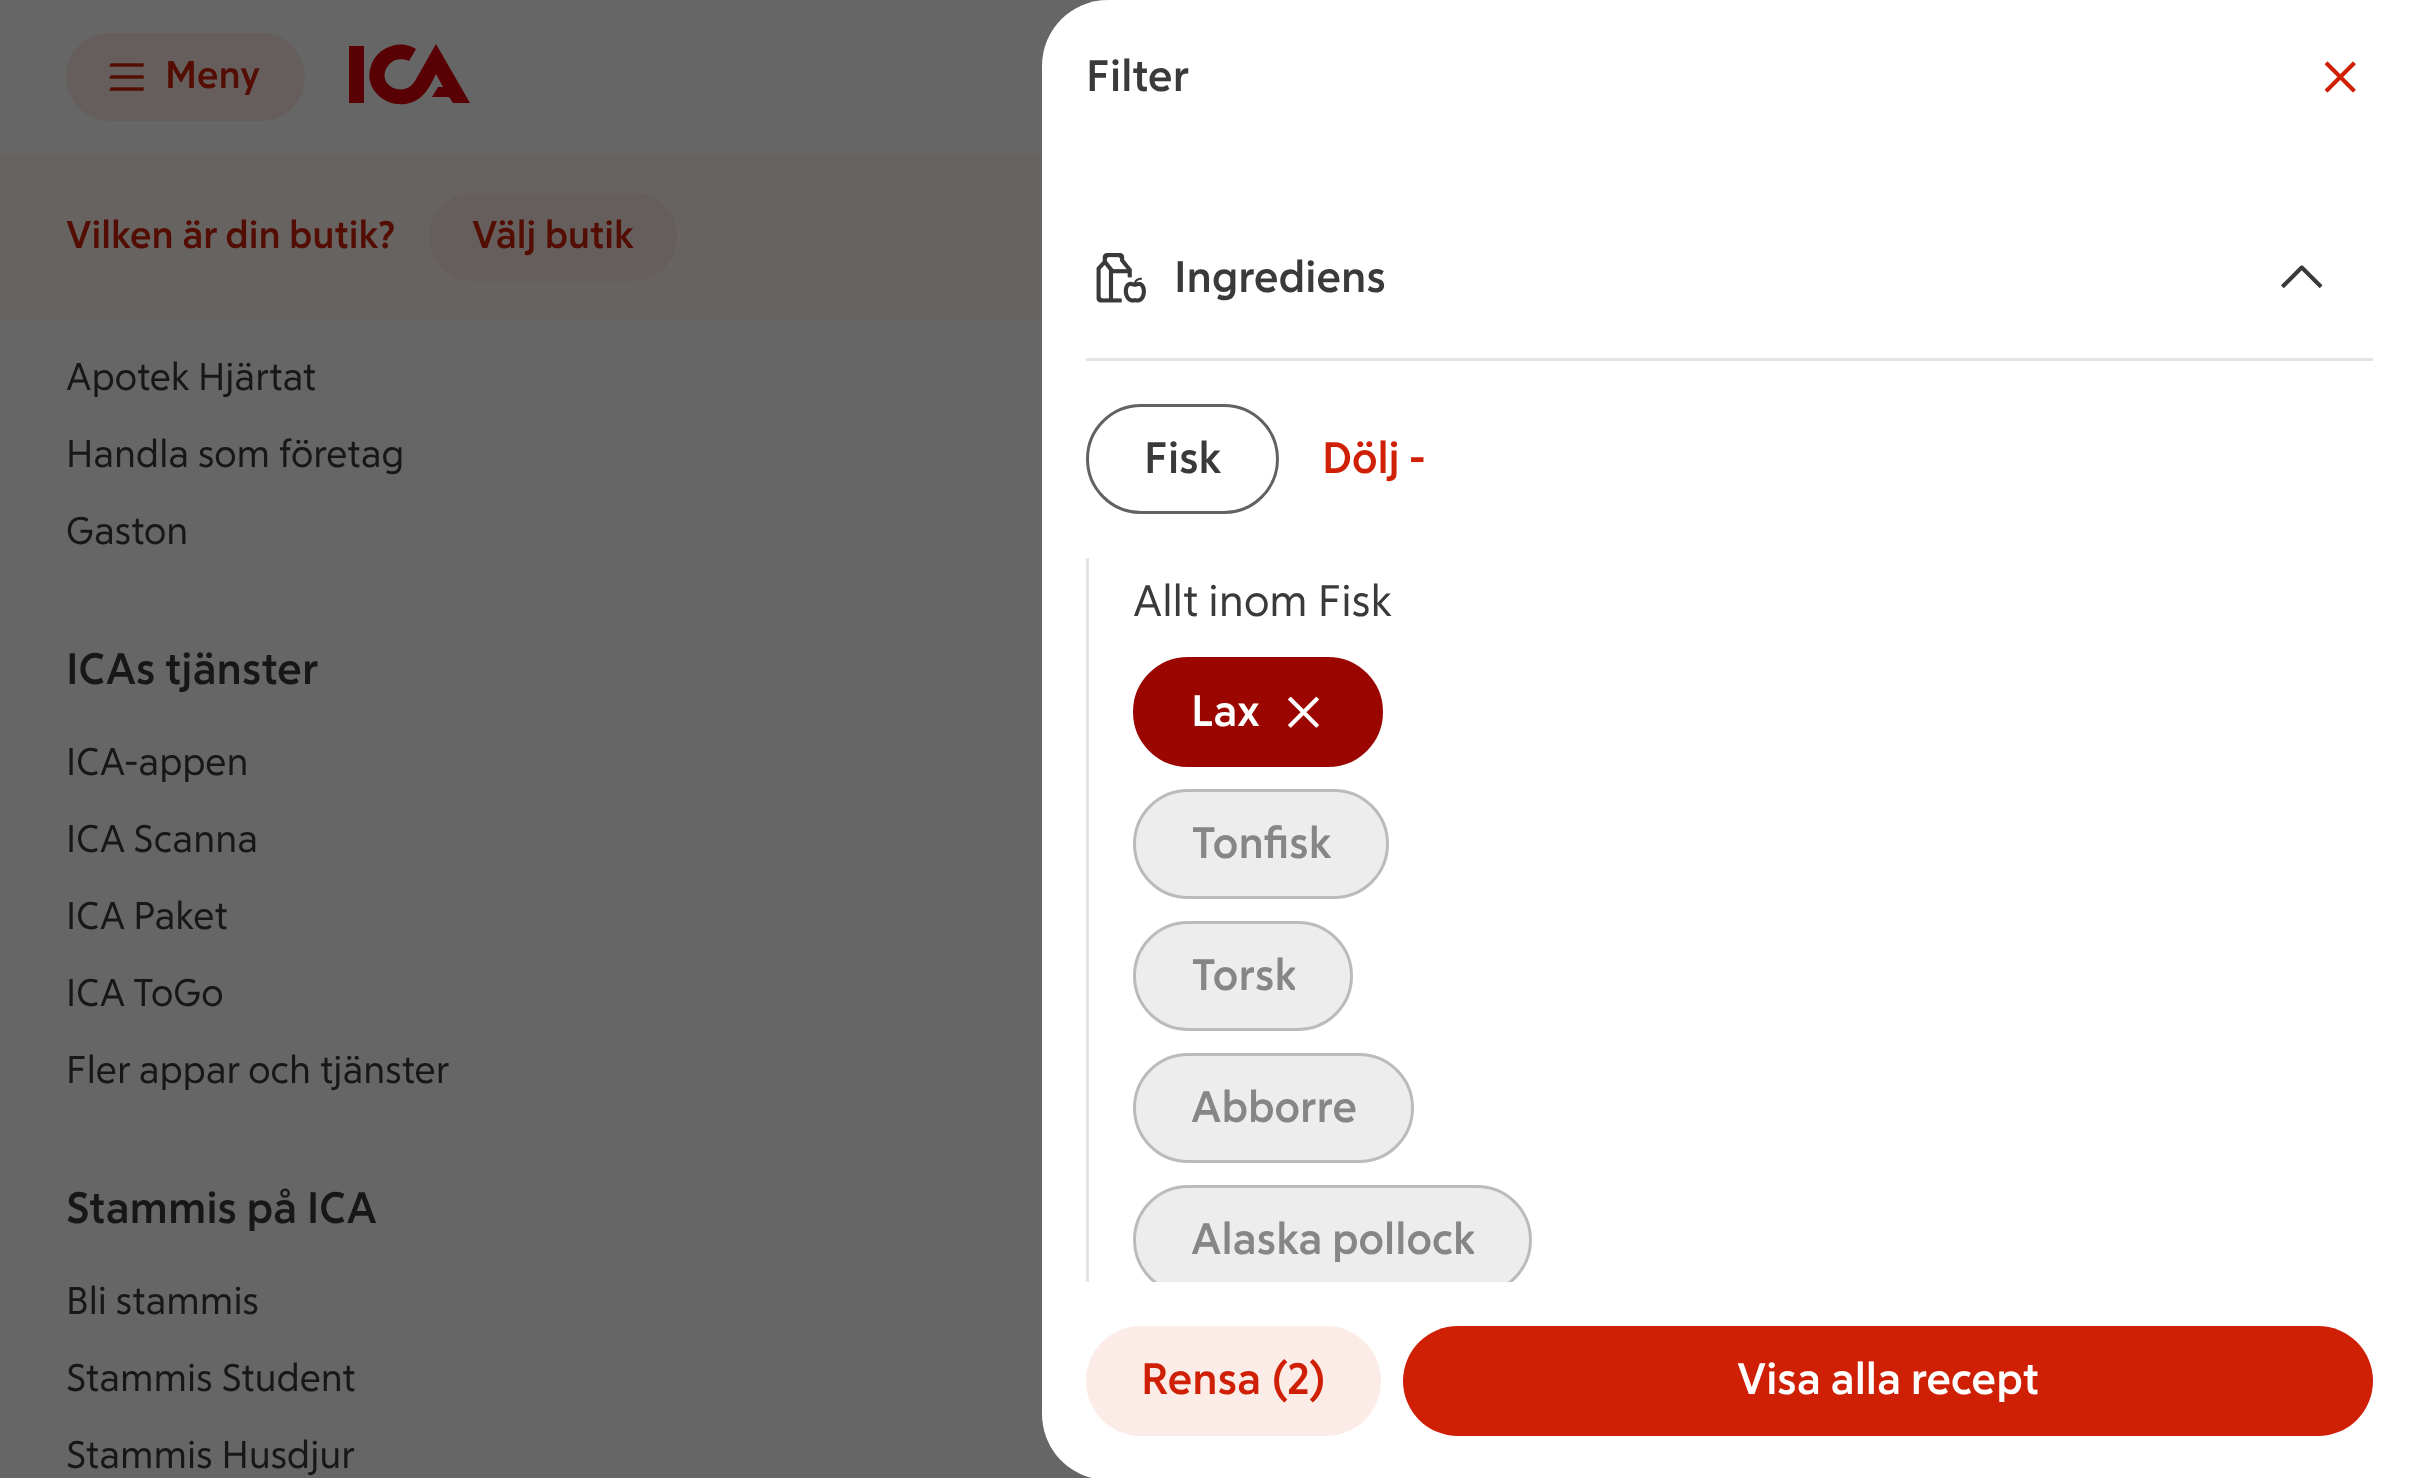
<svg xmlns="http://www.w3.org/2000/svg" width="2416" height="1478">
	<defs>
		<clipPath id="clip1"><rect x="1191" y="943" width="104" height="66" /></clipPath>
		<clipPath id="clip2"><rect x="1042" y="154" width="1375" height="1128" /></clipPath>
		<clipPath id="clip3"><rect x="1191" y="1207" width="283" height="66" /></clipPath>
	</defs>
	<rect width="100%" height="100%" fill="#666666" />
	<rect x="66" y="33" width="239" height="88" rx="44" fill="#655E5C" />
	<image x="109" y="63" width="35" height="28" href="assets/img1.png" />
	<text x="165" y="88" font-family="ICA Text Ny" font-size="38.5" font-weight="700" fill="#530D02">Meny</text>
	<path d="M436 44L470 103H453L449 97H432L438 87H443L436 74C432 82 428 91 421 97C397 117 359 93 372 63C375 56 381 50 389 47C398 43 408 44 416 49L409 61C405 59 399 59 395 60C391 62 388 65 386 69C378 87 405 98 415 81ZM349 103V46H364V103Z" fill="#580004" fill-rule="evenodd" />
	<rect x="0" y="154" width="1042" height="165" fill="#666361" />
	<text x="66" y="248" font-family="ICA Text Ny" font-size="38.5" font-weight="700" fill="#530D02">Vilken är din butik?</text>
	<rect x="429" y="193" width="248" height="88" rx="44" fill="#655E5C" />
	<text x="472" y="248" font-family="ICA Text Ny" font-size="38.5" font-weight="700" fill="#530D02">Välj butik</text>
	<g font-family="ICA Text Ny" font-size="38.5" fill="#171717">
		<text x="66" y="390">Apotek Hjärtat</text>
		<text x="66" y="467">Handla som företag</text>
		<text x="66" y="544">Gaston</text>
	</g>
	<text x="66" y="684" font-family="ICA Text Ny" font-size="44" font-weight="700" fill="#171717">ICAs tjänster</text>
	<g font-family="ICA Text Ny" font-size="38.5" fill="#171717">
		<text x="66" y="775">ICA-appen</text>
		<text x="66" y="852">ICA Scanna</text>
		<text x="66" y="929">ICA Paket</text>
		<text x="66" y="1006">ICA ToGo</text>
		<text x="66" y="1083">Fler appar och tjänster</text>
	</g>
	<text x="66" y="1223" font-family="ICA Text Ny" font-size="44" font-weight="700" fill="#171717">Stammis på ICA</text>
	<g font-family="ICA Text Ny" font-size="38.5" fill="#171717">
		<text x="66" y="1314">Bli stammis</text>
		<text x="66" y="1391">Stammis Student</text>
		<text x="66" y="1468">Stammis Husdjur</text>
	</g>
	<path d="M1108 0H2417V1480H1108C1071.5 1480 1042 1450.5 1042 1414V66C1042 29.5 1071.5 0 1108 0Z" fill="#FFFFFF" />
	<text x="1086" y="91" font-family="ICA Text Ny" font-size="44" font-weight="700" fill="#3A3A3A">Filter</text>
	<image x="2324" y="61" width="32" height="32" href="assets/img2.png" />
	<rect x="1086" y="358" width="1287" height="3" fill="#E4E4E4" />
	<image x="1096" y="253" width="50" height="50" href="assets/img3.png" />
	<text x="1174" y="292" font-family="ICA Text Ny" font-size="44" font-weight="700" fill="#3A3A3A">Ingrediens</text>
	<image x="2281" y="265" width="42" height="23" href="assets/img4.png" />
	<rect x="1087.5" y="405.5" width="190" height="107" rx="53.5" fill="none" stroke="#626262" stroke-width="3" />
	<text x="1144" y="473" font-family="ICA Text Ny" font-size="44" font-weight="700" fill="#3A3A3A">Fisk</text>
	<text x="1322" y="473" font-family="ICA Text Ny" font-size="44" font-weight="700" fill="#CF2005">Dölj -</text>
	<rect x="1086" y="558" width="3" height="724" fill="#E4E4E4" />
	<text x="1133" y="616" font-family="ICA Text Ny" font-size="44" fill="#3A3A3A">Allt inom Fisk</text>
	<rect x="1134.5" y="658.5" width="247" height="107" rx="53.5" fill="#9B0600" stroke="#9B0600" stroke-width="3" />
	<text x="1191" y="726" font-family="ICA Text Ny" font-size="44" font-weight="700" fill="#FFFFFF">Lax</text>
	<image x="1288" y="696" width="31" height="32" href="assets/img5.png" />
	<rect x="1134.5" y="790.5" width="253" height="107" rx="53.5" fill="#EDEDED" stroke="#BDBBB9" stroke-width="3" />
	<text x="1191" y="858" font-family="ICA Text Ny" font-size="44" font-weight="700" fill="#868686">Tonfisk</text>
	<rect x="1134.5" y="922.5" width="217" height="107" rx="53.5" fill="#EDEDED" stroke="#BDBBB9" stroke-width="3" />
	<g clip-path="url(#clip1)">
		<text x="1191" y="990" font-family="ICA Text Ny" font-size="44" font-weight="700" fill="#868686">Torsk</text>
	</g>
	<rect x="1134.5" y="1054.5" width="278" height="107" rx="53.5" fill="#EDEDED" stroke="#BDBBB9" stroke-width="3" />
	<text x="1191" y="1122" font-family="ICA Text Ny" font-size="44" font-weight="700" fill="#868686">Abborre</text>
	<g clip-path="url(#clip2)">
		<rect x="1134.5" y="1186.5" width="396" height="107" rx="53.5" fill="#EDEDED" stroke="#BDBBB9" stroke-width="3" />
	</g>
	<g clip-path="url(#clip3)">
		<text x="1191" y="1254" font-family="ICA Text Ny" font-size="44" font-weight="700" fill="#868686">Alaska pollock</text>
	</g>
	<rect x="1086" y="1326" width="295" height="110" rx="55" fill="#FCECE7" />
	<text x="1141" y="1394" font-family="ICA Text Ny" font-size="44" font-weight="700" fill="#CF2005">Rensa (2)</text>
	<rect x="1403" y="1326" width="970" height="110" rx="55" fill="#CF2005" />
	<text x="1737" y="1394" font-family="ICA Text Ny" font-size="44" font-weight="700" fill="#FFFFFF">Visa alla recept</text>
</svg>
